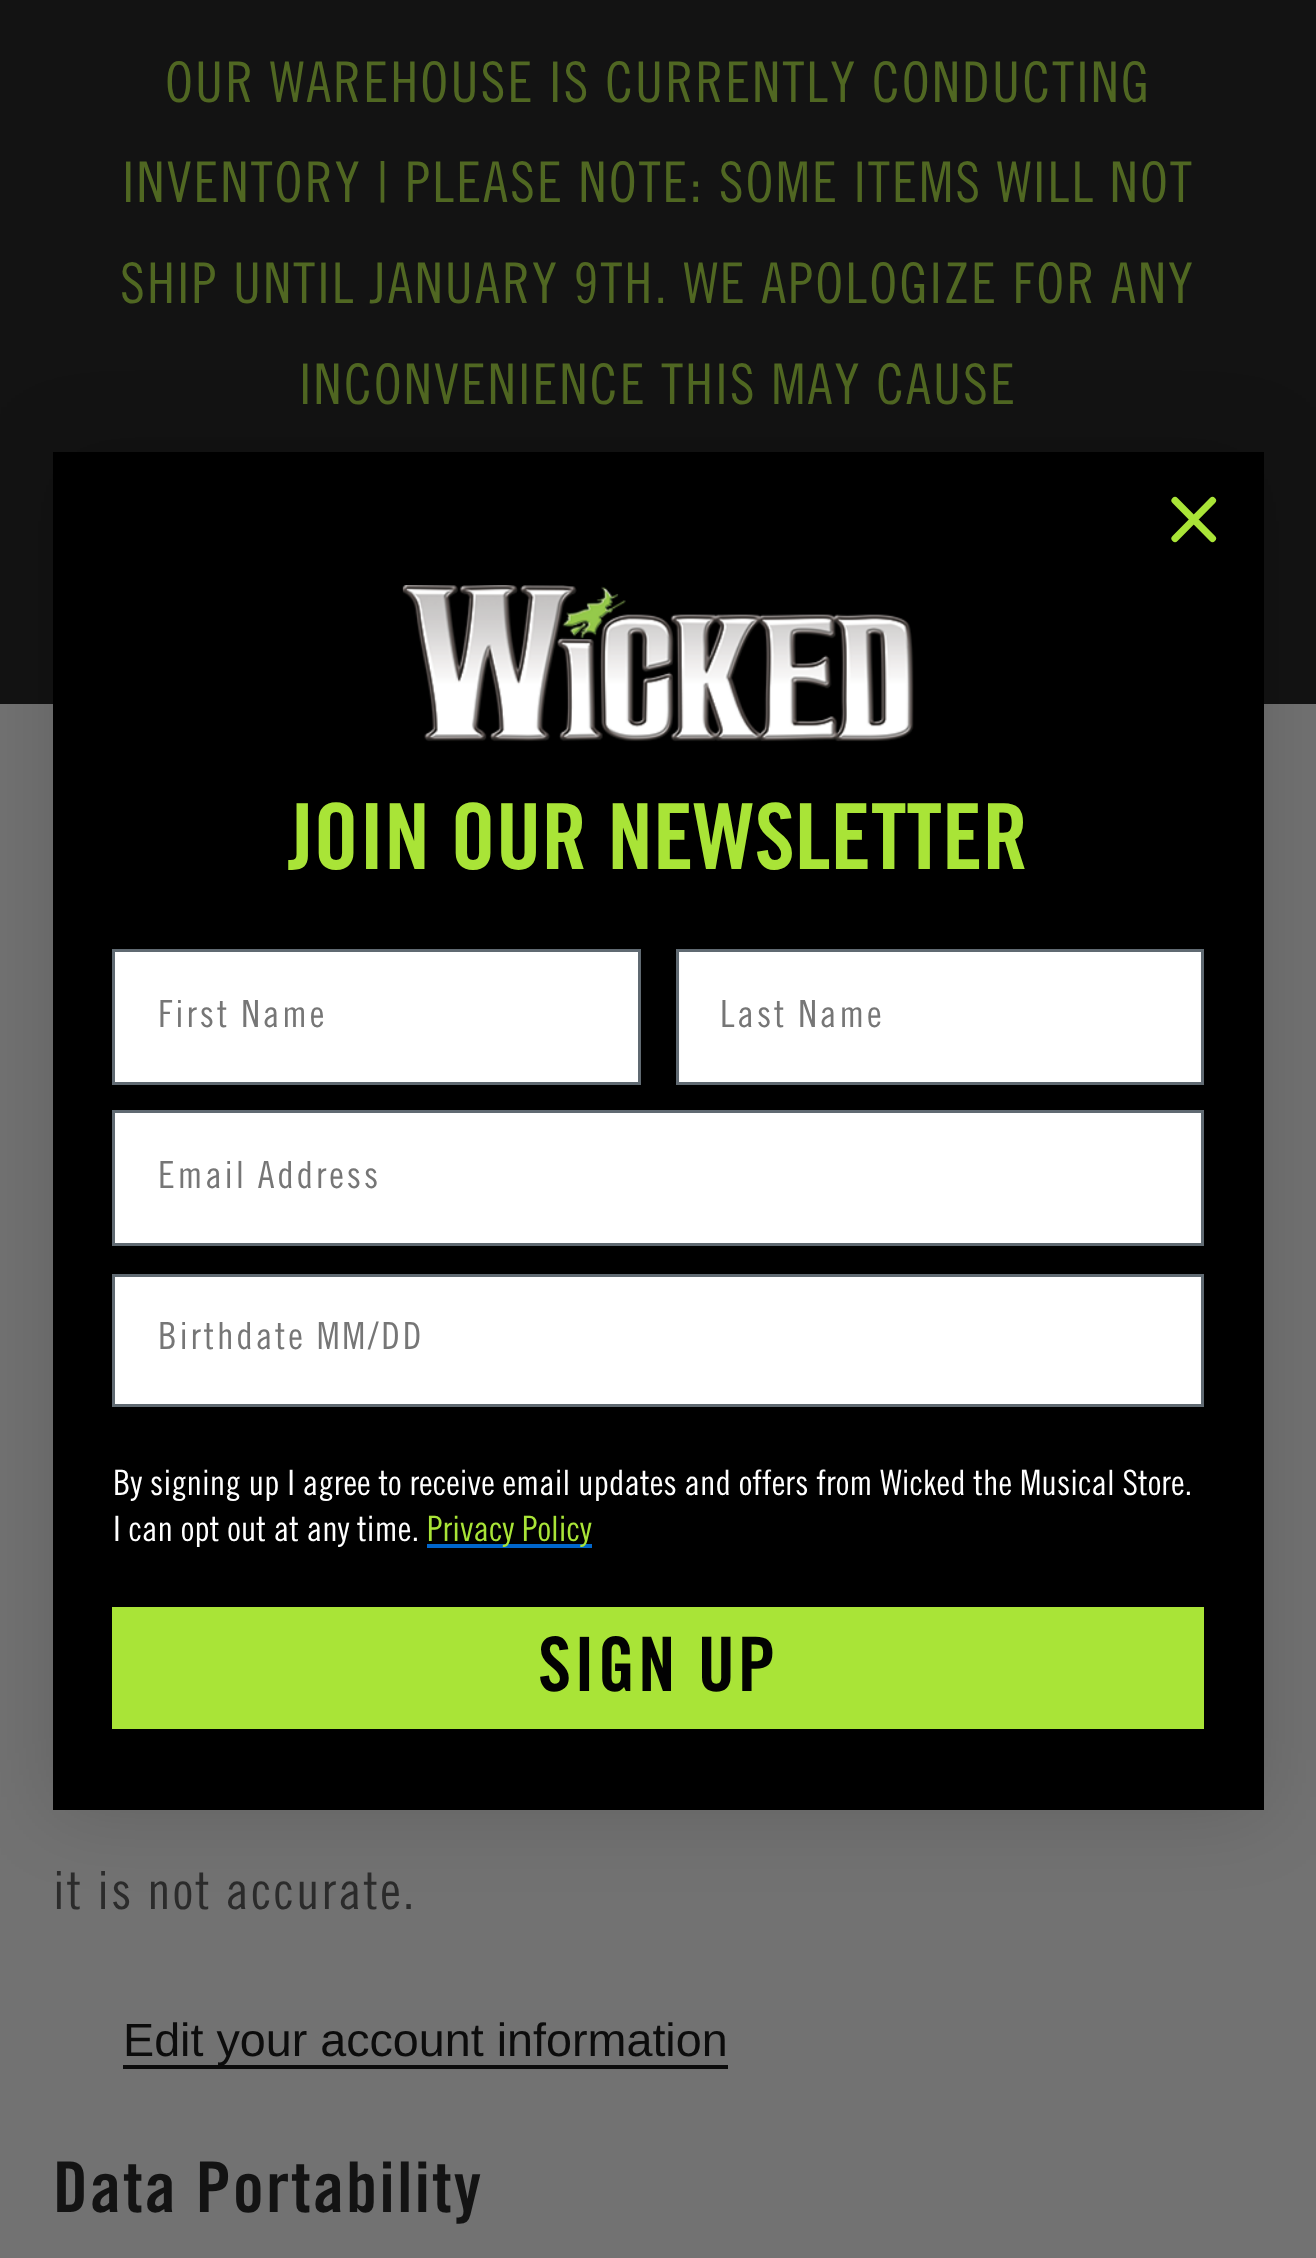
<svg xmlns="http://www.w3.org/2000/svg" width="1316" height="2258">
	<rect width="100%" height="100%" fill="#727272" />
	<rect x="0" y="0" width="1316" height="704" fill="#131313" />
	<g font-family="'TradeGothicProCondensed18'" font-size="56" letter-spacing="2.1" fill="#506722">
		<text x="165" y="102">OUR WAREHOUSE IS CURRENTLY CONDUCTING</text>
		<text x="122" y="202">INVENTORY | PLEASE NOTE: SOME ITEMS WILL NOT</text>
		<text x="120" y="303">SHIP UNTIL JANUARY 9TH. WE APOLOGIZE FOR ANY</text>
		<text x="299" y="404">INCONVENIENCE THIS MAY CAUSE</text>
	</g>
	<rect x="53" y="452" width="1211" height="1358" fill="#000000" fill-opacity="0.15" filter="blur(40.5px)" />
	<rect x="53" y="452" width="1211" height="1358" fill="#000000" />
	<path d="M1175 500.5L1212.5 538.5M1175 538.5L1212.5 500.5Z" fill="none" stroke="#A9E437" stroke-width="7.1" stroke-linecap="round" stroke-linejoin="round" />
	<image x="402" y="585" width="512" height="157" href="assets/img1.png" />
	<text x="288" y="869" font-family="'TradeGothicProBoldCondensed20'" font-size="91.25" fill="#A9E437">JOIN OUR NEWSLETTER</text>
	<rect x="113.5" y="950.5" width="526" height="133" fill="#FFFFFF" stroke="#606A72" stroke-width="3" />
	<text x="158" y="1027" font-family="'TradeGothicProCondensed18'" font-size="37.5" letter-spacing="2.75" fill="#767676">First Name</text>
	<rect x="677.5" y="950.5" width="525" height="133" fill="#FFFFFF" stroke="#606A72" stroke-width="3" />
	<text x="720" y="1027" font-family="'TradeGothicProCondensed18'" font-size="37.5" letter-spacing="2.75" fill="#767676">Last Name</text>
	<rect x="113.5" y="1111.5" width="1089" height="133" fill="#FFFFFF" stroke="#606A72" stroke-width="3" />
	<text x="158" y="1188" font-family="'TradeGothicProCondensed18'" font-size="37.5" letter-spacing="2.75" fill="#767676">Email Address</text>
	<rect x="113.5" y="1275.5" width="1089" height="130" fill="#FFFFFF" stroke="#606A72" stroke-width="3" />
	<text x="158" y="1349" font-family="'TradeGothicProCondensed18'" font-size="37.5" letter-spacing="2.75" fill="#767676">Birthdate MM/DD</text>
	<g font-family="'TradeGothicProCondensed18'" font-size="34.9" fill="#FFFFFF">
		<text x="113" y="1495">By signing up I agree to receive email updates and offers from Wicked the Musical Store.</text>
		<text x="113" y="1541">I can opt out at any time.</text>
	</g>
	<rect x="427" y="1544" width="165" height="4" fill="#0066CC" />
	<text x="427" y="1541" font-family="'TradeGothicProCondensed18'" font-size="34.9" fill="#A9E437">Privacy Policy</text>
	<rect x="112" y="1607" width="1092" height="122" fill="#A9E437" />
	<text x="538" y="1691" font-family="'TradeGothicProBoldCondensed20'" font-size="75" letter-spacing="2.75" fill="#020202">SIGN UP</text>
	<text x="53" y="1909" font-family="'TradeGothicProCondensed18'" font-size="52.5" letter-spacing="2.1" fill="#2B2B2B">it is not accurate.</text>
	<rect x="123" y="2065" width="605" height="4" fill="#0C0C0C" />
	<text x="123" y="2056" font-family="Liberation Sans" font-size="46.7" fill="#0C0C0C">Edit your account information</text>
	<text x="53" y="2212" font-family="'TradeGothicProBoldCondensed20'" font-size="70" letter-spacing="2.1" fill="#131313">Data Portability</text>
</svg>
